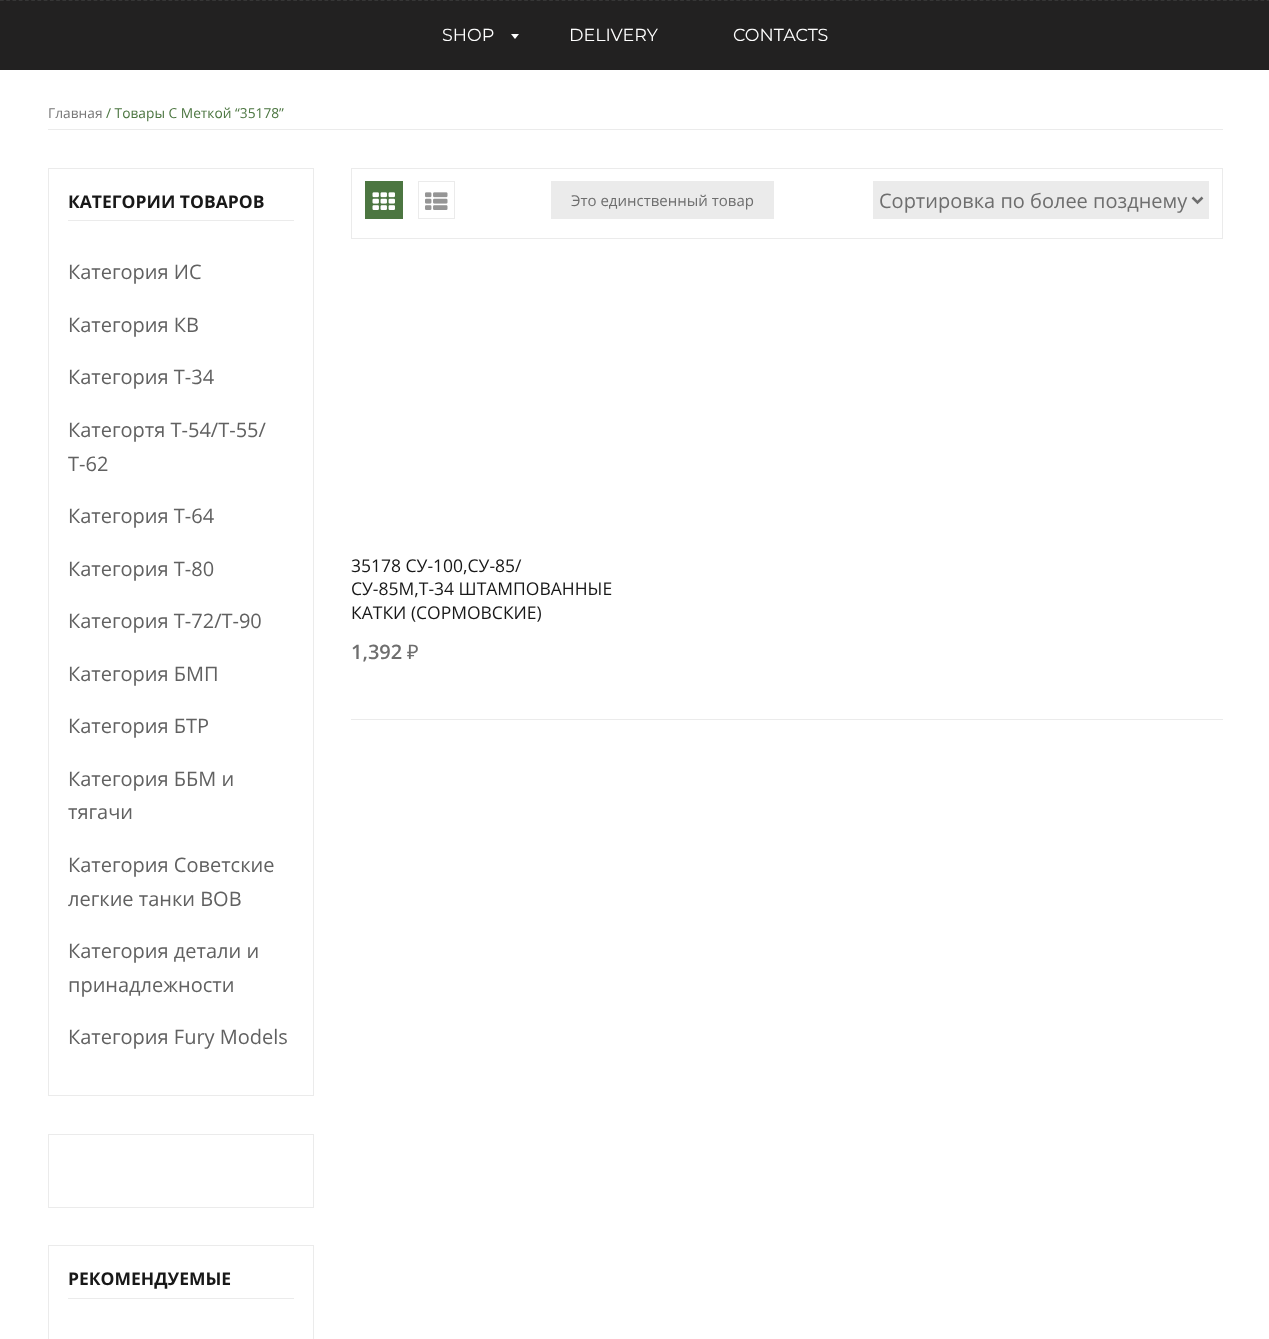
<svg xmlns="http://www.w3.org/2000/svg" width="1269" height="1339">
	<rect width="100%" height="100%" fill="#FFFFFF" />
	<rect x="0" y="0" width="1269" height="70" fill="#222121" />
	<path d="M0 .5H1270" fill="none" stroke="#363636" stroke-width="1.2" stroke-dasharray="3.75 2.49" />
	<text x="442" y="41" font-family="Montserrat" font-size="17.5" fill="#FFFFFF">SHOP</text>
	<path d="M511 34H519L515 39Z" fill="#FFFFFF" />
	<g font-family="Montserrat" font-size="17.5" fill="#FFFFFF">
		<text x="569" y="41">DELIVERY</text>
		<text x="733" y="41">CONTACTS</text>
	</g>
	<rect x="48" y="129" width="1175" height="1" fill="#EBEBEB" />
	<text x="48" y="118" font-family="Open Sans" font-size="13.75" fill="#777777">Главная</text>
	<text x="106" y="118" font-family="Open Sans" font-size="13.75" fill="#4C7641">/ Товары С Меткой “35178”</text>
	<rect x="48.5" y="168.5" width="265" height="927" fill="none" stroke="#EBEBEB" />
	<rect x="68" y="220" width="226" height="1" fill="#EBEBEB" />
	<text x="68" y="208" font-family="Open Sans" font-size="17.5" font-weight="700" fill="#181818">КАТЕГОРИИ ТОВАРОВ</text>
	<g font-family="Open Sans" font-size="20" fill="#616161">
		<text x="68" y="279">Категория ИС</text>
		<text x="68" y="332">Категория КВ</text>
		<text x="68" y="384">Категория Т-34</text>
		<text x="68" y="437">Категортя Т-54/Т-55/</text>
		<text x="68" y="471">Т-62</text>
		<text x="68" y="523">Категория T-64</text>
		<text x="68" y="576">Категория T-80</text>
		<text x="68" y="628">Категория T-72/T-90</text>
		<text x="68" y="681">Категория БМП</text>
		<text x="68" y="733">Категория БТР</text>
		<text x="68" y="786">Категория ББМ и</text>
		<text x="68" y="819">тягачи</text>
		<text x="68" y="872">Категория Советские</text>
		<text x="68" y="906">легкие танки ВОВ</text>
		<text x="68" y="958">Категория детали и</text>
		<text x="68" y="992">принадлежности</text>
		<text x="68" y="1044">Категория Fury Models</text>
	</g>
	<rect x="48.5" y="1134.5" width="265" height="73" fill="none" stroke="#EBEBEB" />
	<rect x="48.5" y="1245.5" width="265" height="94" fill="none" stroke="#EBEBEB" />
	<rect x="68" y="1298" width="226" height="1" fill="#EBEBEB" />
	<text x="68" y="1285" font-family="Open Sans" font-size="17.5" font-weight="700" fill="#181818">РЕКОМЕНДУЕМЫЕ</text>
	<rect x="351.5" y="168.5" width="871" height="70" fill="none" stroke="#EBEBEB" />
	<rect x="365" y="181" width="38" height="38" fill="#4C7641" />
	<image x="372" y="192" width="23" height="18" href="assets/img1.png" />
	<rect x="418.5" y="181.5" width="36" height="37" fill="none" stroke="#EBEBEB" />
	<image x="425" y="192" width="23" height="18" href="assets/img2.png" />
	<rect x="551" y="181" width="223" height="38" fill="#EBEBEB" />
	<text x="571" y="206" font-family="Open Sans" font-size="15" fill="#6E6E6E">Это единственный товар</text>
	<rect x="873" y="181" width="336" height="38" fill="#EBEBEB" />
	<path d="M1192.5 197.5L1197.5 202.5L1202.5 197.5" fill="none" stroke="#6E6E6E" stroke-width="2.5" />
	<text x="879" y="208" font-family="Open Sans" font-size="20" fill="#6E6E6E">Сортировка по более позднему</text>
	<g font-family="Open Sans" font-size="17.5" fill="#181818">
		<text x="351" y="572">35178 СУ-100,СУ-85/</text>
		<text x="351" y="595">СУ-85М,Т-34 ШТАМПОВАННЫЕ</text>
		<text x="351" y="619">КАТКИ (СОРМОВСКИЕ)</text>
	</g>
	<text x="351" y="659" font-family="Open Sans" font-size="20" font-weight="600" fill="#6E6E6E">1,392</text>
	<text x="407" y="659" font-family="Noto Sans" font-size="20" fill="#6E6E6E">₽</text>
	<rect x="351" y="719" width="872" height="1" fill="#EBEBEB" />
</svg>
